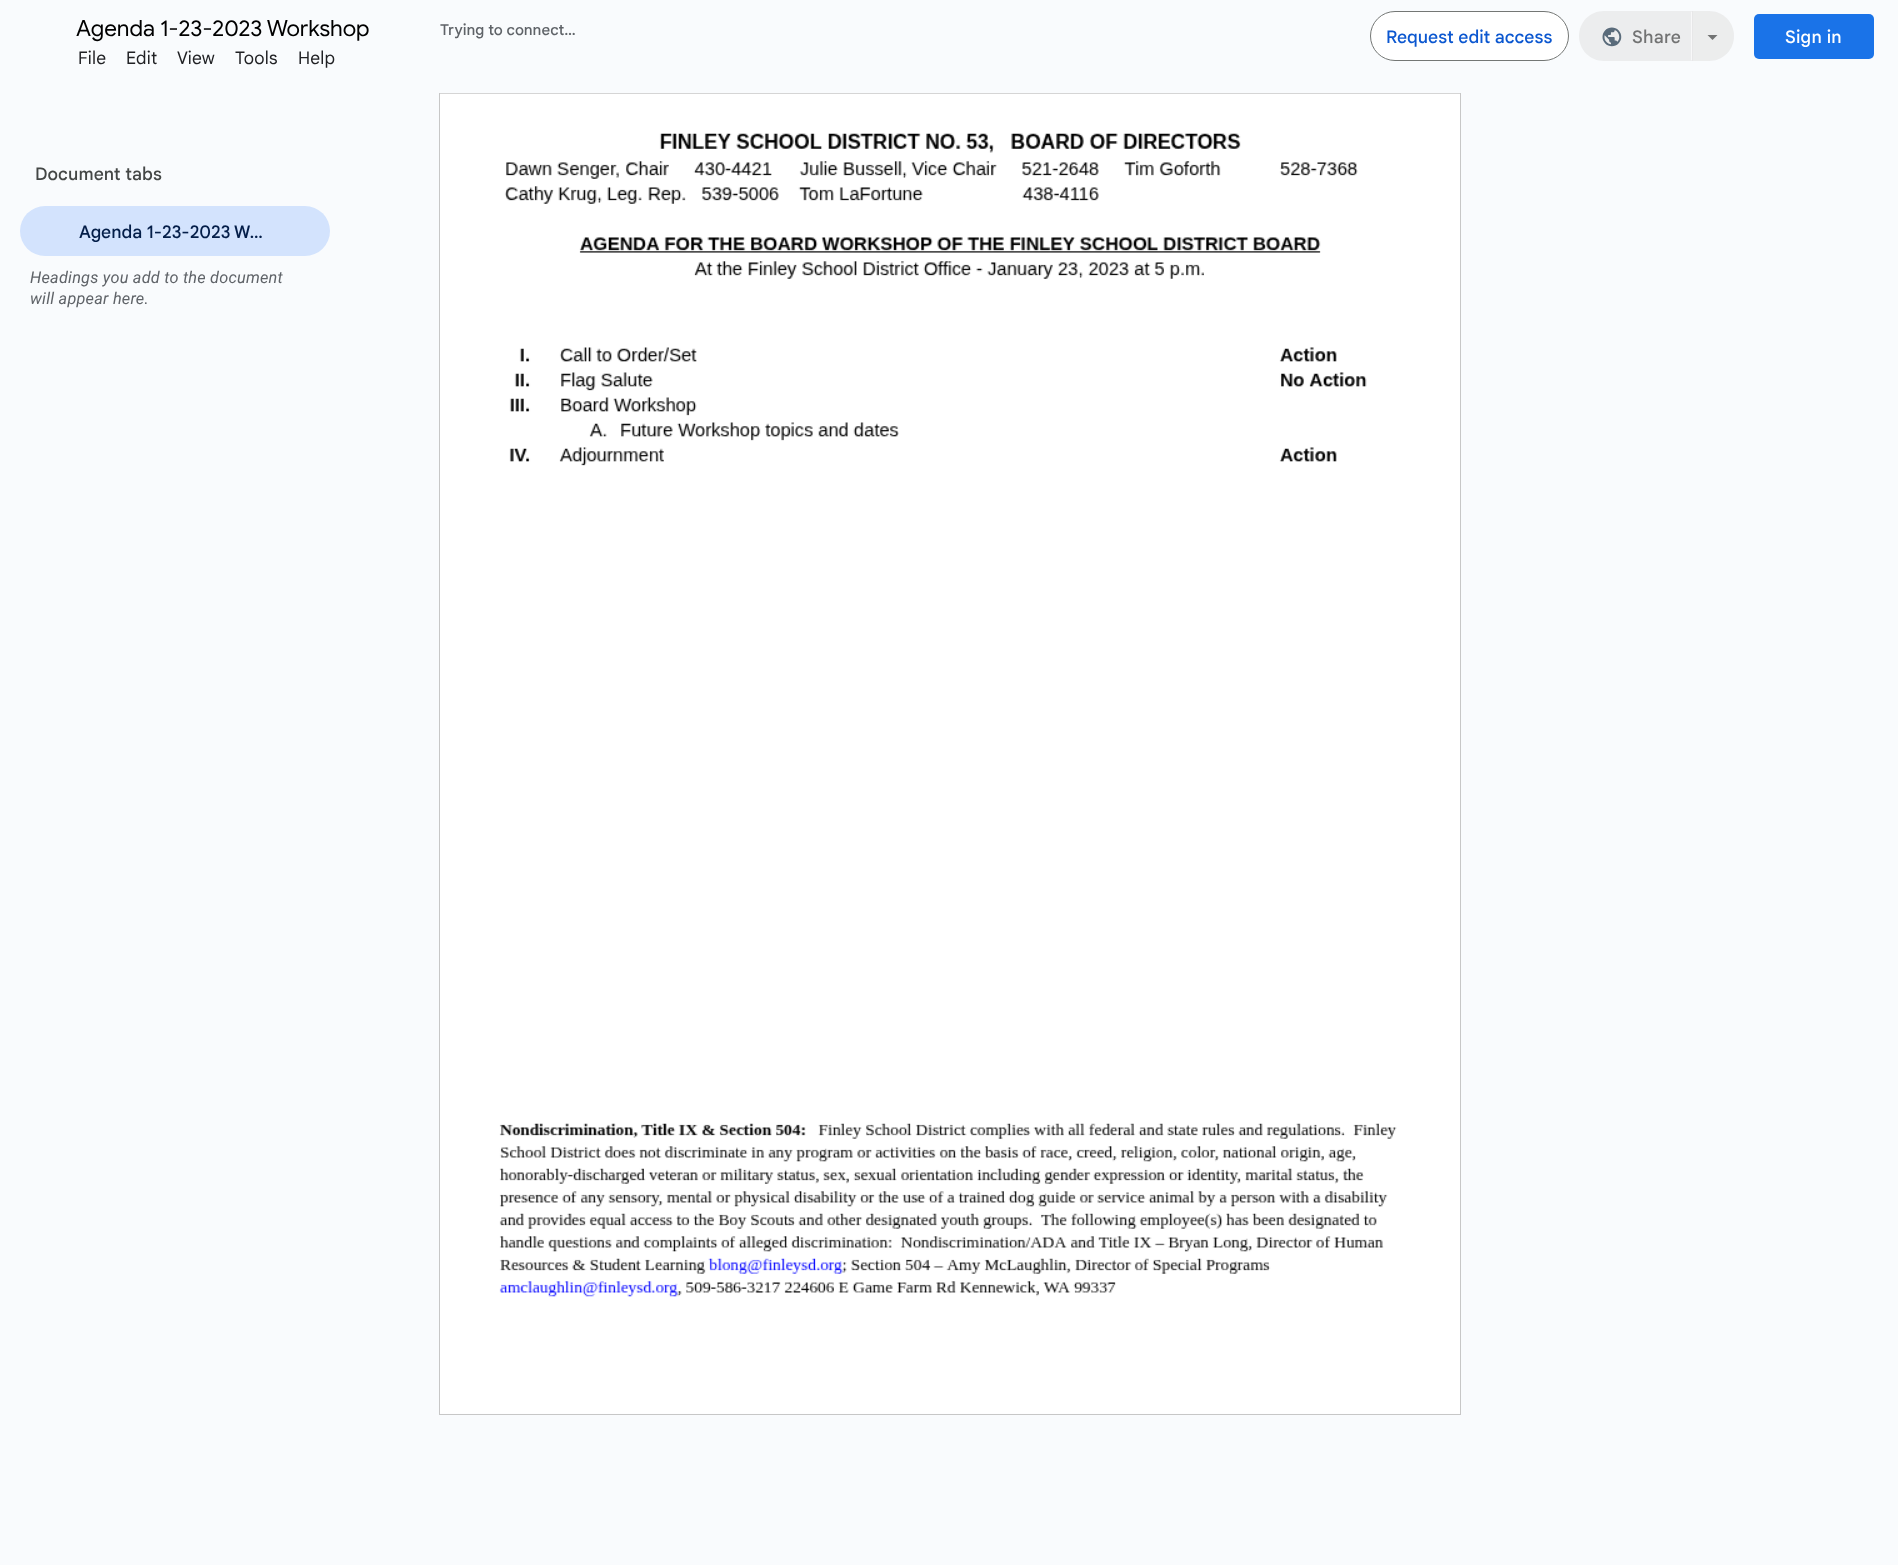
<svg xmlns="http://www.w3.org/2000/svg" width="1898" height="1565">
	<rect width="100%" height="100%" fill="#F9FBFD" />
	<text x="76" y="36" font-family="'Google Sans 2'" font-size="22.5" fill="#000000">Agenda 1-23-2023 Workshop</text>
	<text x="440" y="35" font-family="Google Sans" font-size="15" font-weight="500" fill="#5F6368">Trying to connect…</text>
	<rect x="1370.5" y="11.5" width="198" height="49" rx="24.5" fill="#FFFFFF" stroke="#747775" />
	<text x="1386" y="43" font-family="Google Sans" font-size="17.5" font-weight="500" fill="#0B57D0">Request edit access</text>
	<path d="M1604 11H1693V61H1604C1590 61 1579 50 1579 36C1579 22 1590 11 1604 11Z" fill="#ECEDEE" />
	<image x="1602" y="27" width="20" height="20" href="assets/img1.png" />
	<text x="1632" y="43" font-family="Google Sans" font-size="17.5" font-weight="500" letter-spacing="0.25" fill="#727373">Share</text>
	<path d="M1691 11H1709C1723 11 1734 22 1734 36C1734 50 1723 61 1709 61H1691Z" fill="#E4E4E4" fill-opacity="0.62" />
	<path d="M1692 12V60L1691 61V11Z" fill="#F8F8F9" />
	<path d="M1707.5 35H1717.5L1712.5 40Z" fill="#727373" />
	<rect x="1754" y="14" width="120" height="45" rx="5" fill="#1A73E8" />
	<text x="1785" y="43" font-family="Google Sans" font-size="17.5" font-weight="500" letter-spacing="0.25" fill="#FFFFFF">Sign in</text>
	<g font-family="Google Sans" font-size="17.5" letter-spacing="0.25" fill="#202124">
		<text x="78" y="64">File</text>
		<text x="126" y="64">Edit</text>
		<text x="177" y="64">View</text>
		<text x="235" y="64">Tools</text>
		<text x="298" y="64">Help</text>
	</g>
	<text x="35" y="180" font-family="Google Sans" font-size="17.5" font-weight="500" letter-spacing="0.1" fill="#444746">Document tabs</text>
	<rect x="20" y="206" width="310" height="50" rx="25" fill="#D3E3FD" />
	<text x="79" y="238" font-family="Google Sans" font-size="17.5" font-weight="500" fill="#041E49">Agenda 1-23-2023 W…</text>
	<g font-family="Roboto" font-size="16.25" font-style="italic" letter-spacing="0.25" fill="#5F6368">
		<text x="30" y="283">Headings you add to the document</text>
		<text x="30" y="304">will appear here.</text>
	</g>
	<rect x="439.5" y="93.5" width="1021" height="1321" fill="none" stroke="#C7C7C7" />
	<image x="440" y="93" width="1020" height="1321" href="assets/img2.png" />
</svg>
